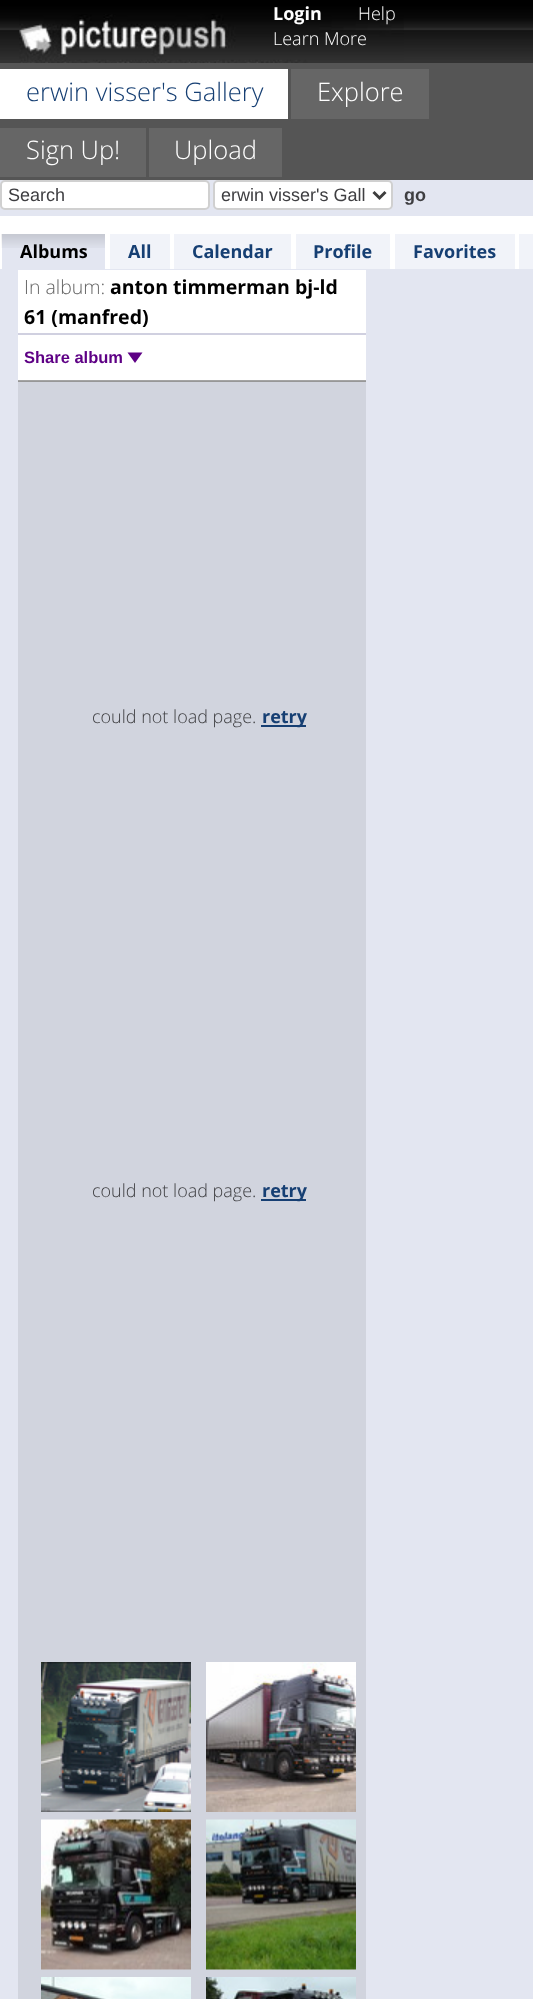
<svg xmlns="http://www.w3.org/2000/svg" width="533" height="1999">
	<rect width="100%" height="100%" fill="#E3E6F1" />
	<rect x="18" y="382" width="348" height="1617" fill="#D1D4DE" />
	<image x="0" y="0" width="533" height="63" href="assets/img1.png" />
	<image x="19" y="14" width="385" height="49" href="assets/img2.png" />
	<text x="273" y="20" font-family="Open Sans" font-size="18" font-weight="700" fill="#FFFFFF">Login</text>
	<g font-family="Open Sans" font-size="18" font-weight="300" fill="#FFFFFF">
		<text x="358" y="20">Help</text>
		<text x="273" y="45">Learn More</text>
	</g>
	<rect x="0" y="63" width="533" height="117" fill="#555555" />
	<rect x="0" y="69" width="288" height="50" fill="#FFFFFF" />
	<text x="26" y="101" font-family="Open Sans" font-size="25.5" font-weight="300" fill="#163F73">erwin visser's Gallery</text>
	<rect x="291" y="69" width="138" height="50" fill="#666666" />
	<text x="317" y="101" font-family="Open Sans" font-size="25.5" font-weight="300" fill="#FFFFFF">Explore</text>
	<rect x="0" y="128" width="146" height="49" fill="#666666" />
	<text x="26" y="159" font-family="Open Sans" font-size="25.5" font-weight="300" fill="#FFFFFF">Sign Up!</text>
	<rect x="149" y="128" width="133" height="49" fill="#666666" />
	<text x="174" y="159" font-family="Open Sans" font-size="25.5" font-weight="300" fill="#FFFFFF">Upload</text>
	<rect x="1" y="181" width="208" height="28" rx="4" fill="#FFFFFF" stroke="#D0D0D0" stroke-width="2" />
	<text x="8" y="201" font-family="Liberation Sans" font-size="18" fill="#3E3E41">Search</text>
	<rect x="214" y="181" width="178" height="28" rx="4" fill="#FFFFFF" stroke="#D0D0D0" stroke-width="2" />
	<path d="M373.5 192L379.5 198L385.5 192" fill="none" stroke="#3E3E3E" stroke-width="3" />
	<text x="221" y="201" font-family="Liberation Sans" font-size="18" fill="#3E3E41">erwin visser's Gall</text>
	<text x="404" y="201" font-family="Liberation Sans" font-size="18" font-weight="700" fill="#3E3E41">go</text>
	<rect x="0" y="216" width="533" height="53" fill="#FFFFFF" />
	<rect x="2" y="234" width="103" height="35" fill="#E3E6F1" />
	<image x="1" y="234" width="104" height="14" href="assets/img3.png" />
	<text x="20" y="258" font-family="Open Sans" font-size="18" font-weight="700" fill="#000000">Albums</text>
	<rect x="110" y="234" width="60" height="35" fill="#F1F3F9" />
	<text x="128" y="258" font-family="Open Sans" font-size="18" font-weight="700" fill="#163F73">All</text>
	<rect x="174" y="234" width="117" height="35" fill="#F1F3F9" />
	<text x="192" y="258" font-family="Open Sans" font-size="18" font-weight="700" fill="#163F73">Calendar</text>
	<rect x="296" y="234" width="94" height="35" fill="#F1F3F9" />
	<text x="313" y="258" font-family="Open Sans" font-size="18" font-weight="700" fill="#163F73">Profile</text>
	<rect x="395" y="234" width="120" height="35" fill="#F1F3F9" />
	<text x="413" y="258" font-family="Open Sans" font-size="18" font-weight="700" fill="#163F73">Favorites</text>
	<rect x="519" y="234" width="14" height="35" fill="#F1F3F9" />
	<rect x="18" y="270" width="348" height="110" fill="#FFFFFF" />
	<rect x="18" y="380" width="348" height="1" fill="#A4A4A4" />
	<rect x="18" y="381" width="348" height="1" fill="#979797" />
	<text x="24" y="294" font-family="Open Sans" font-size="19.5" font-weight="300" fill="#666666">In album:</text>
	<g font-family="Open Sans" font-size="19.5" font-weight="700" fill="#000000">
		<text x="110" y="294">anton timmerman bj-ld</text>
		<text x="24" y="324">61 (manfred)</text>
	</g>
	<rect x="18" y="333" width="348" height="2" fill="#D0D0E0" />
	<text x="24" y="363" font-family="Liberation Sans" font-size="16.5" font-weight="700" fill="#5E0085">Share album</text>
	<path d="M127.5 352.5H142.5L135 363Z" fill="#5E0085" />
	<text x="92" y="723" font-family="Open Sans" font-size="18" font-weight="300" fill="#3E3E41">could not load page.</text>
	<rect x="261" y="725" width="45" height="2" fill="#163F73" />
	<text x="262" y="723" font-family="Open Sans" font-size="18" font-weight="700" fill="#163F73">retry</text>
	<text x="92" y="1197" font-family="Open Sans" font-size="18" font-weight="300" fill="#3E3E41">could not load page.</text>
	<rect x="261" y="1199" width="45" height="2" fill="#163F73" />
	<text x="262" y="1197" font-family="Open Sans" font-size="18" font-weight="700" fill="#163F73">retry</text>
	<image x="41" y="1662" width="150" height="150" href="assets/img4.png" />
	<image x="206" y="1662" width="150" height="150" href="assets/img5.png" />
	<image x="41" y="1819" width="150" height="151" href="assets/img6.png" />
	<image x="206" y="1819" width="150" height="151" href="assets/img7.png" />
	<image x="41" y="1977" width="150" height="22" href="assets/img8.png" />
	<image x="206" y="1977" width="150" height="22" href="assets/img9.png" />
</svg>
